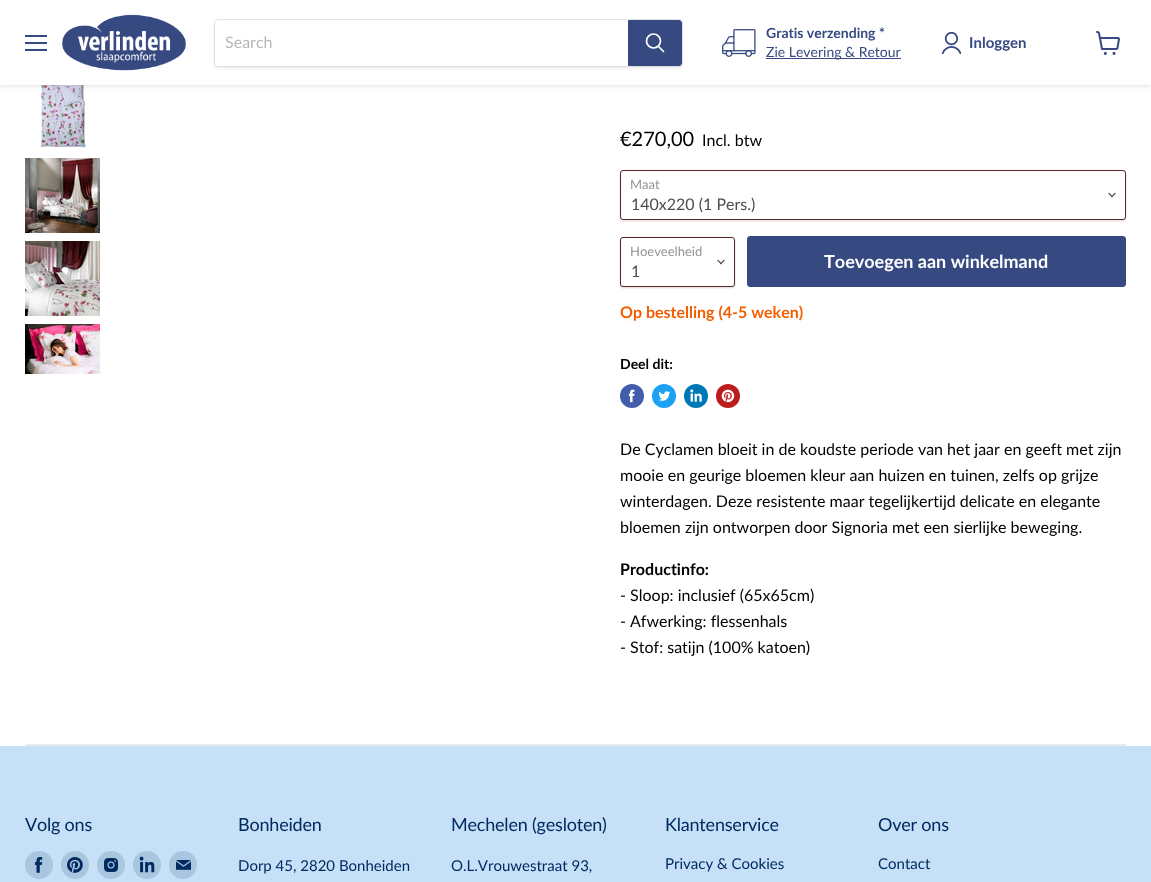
<svg xmlns="http://www.w3.org/2000/svg" width="1151" height="882">
	<style>*{font-kerning:none!important;font-variant-ligatures:none!important}</style>
	<rect width="100%" height="100%" fill="#FFFFFF" />
	<image x="40" y="85" width="49" height="63" href="assets/img5.png" />
	<rect x="0" y="1" width="1151" height="85" fill="#808080" fill-opacity="0.25" filter="blur(2px)" />
	<rect x="0" y="0" width="1151" height="85" fill="#FFFFFF" />
	<rect x="25" y="35" width="22" height="2" fill="#364981" />
	<rect x="25" y="42" width="22" height="2" fill="#364981" />
	<rect x="25" y="49" width="22" height="2" fill="#364981" />
	<image x="62" y="14" width="124" height="57" href="assets/img1.png" />
	<rect x="214" y="21" width="469" height="48" rx="4" fill="#808080" fill-opacity="0.11" filter="blur(1.5px)" />
	<rect x="214.5" y="19.5" width="468" height="47" rx="3.5" fill="none" stroke="#808080" stroke-opacity="0.2" />
	<path d="M218 20H628V66H218C216.5 66 215 64.5 215 63V23C215 21.5 216.5 20 218 20Z" fill="#FFFFFF" />
	<text x="225" y="48" font-family="Lato" font-size="16" fill="#B8B8B8">Search</text>
	<path d="M628.5 20.5H679C680.5 20.5 681.5 21.5 681.5 23V63C681.5 64.5 680.5 65.5 679 65.5H628.5Z" fill="#364981" stroke="#364981" />
	<path d="M663.5 51.5L658.5 46.5" fill="none" stroke="#FFFFFF" stroke-width="1.7" stroke-linecap="round" />
	<circle cx="653.5" cy="41" r="7" fill="none" stroke="#FFFFFF" stroke-width="1.7" />
	<image x="722" y="29" width="34" height="28" href="assets/img2.png" />
	<text x="766" y="38" font-family="Lato" font-size="14" font-weight="700" fill="#364981">Gratis verzending *</text>
	<rect x="766" y="58" width="135" height="1" fill="#364981" />
	<text x="766" y="57" font-family="Lato" font-size="14" fill="#364981">Zie Levering &amp; Retour</text>
	<image x="941" y="31" width="20" height="24" href="assets/img3.png" />
	<text x="969" y="48" font-family="Lato" font-size="15" font-weight="700" fill="#364981">Inloggen</text>
	<image x="1096" y="31" width="24" height="24" href="assets/img4.png" />
	<image x="25" y="158" width="75" height="75" href="assets/img6.png" />
	<image x="25" y="241" width="75" height="75" href="assets/img7.png" />
	<image x="25" y="324" width="75" height="50" href="assets/img8.png" />
	<text x="620" y="146" font-family="Lato" font-size="20" fill="#000000">€270,00</text>
	<text x="702" y="146" font-family="Lato" font-size="16" fill="#000000">Incl. btw</text>
	<rect x="620" y="171" width="506" height="50" rx="3" fill="#000000" fill-opacity="0.15" filter="blur(1px)" />
	<rect x="620.5" y="170.5" width="505" height="49" rx="2.5" fill="#FFFFFF" stroke="#582727" />
	<text x="630" y="189" font-family="Lato" font-size="13" fill="#949494">Maat</text>
	<image x="1108" y="192" width="8" height="6" href="assets/img9.png" />
	<text x="631" y="210" font-family="Lato" font-size="16" fill="#4D4D4D">140x220 (1 Pers.)</text>
	<rect x="620" y="238" width="115" height="50" rx="3" fill="#000000" fill-opacity="0.15" filter="blur(1px)" />
	<rect x="620.5" y="237.5" width="114" height="49" rx="2.5" fill="#FFFFFF" stroke="#582727" />
	<text x="630" y="256" font-family="Lato" font-size="13" fill="#949494">Hoeveelheid</text>
	<image x="717" y="259" width="8" height="6" href="assets/img9.png" />
	<text x="631" y="277" font-family="Lato" font-size="16" fill="#4D4D4D">1</text>
	<rect x="747.5" y="236.5" width="378" height="50" rx="2.5" fill="#364981" stroke="#364981" />
	<text x="824" y="268" font-family="Lato" font-size="18" font-weight="700" fill="#FFFFFF">Toevoegen aan winkelmand</text>
	<text x="620" y="318" font-family="Lato" font-size="16" font-weight="700" fill="#F55E00">Op bestelling (4-5 weken)</text>
	<text x="620" y="369" font-family="Lato" font-size="14" font-weight="700" fill="#000000">Deel dit:</text>
	<circle cx="632" cy="396" r="12" fill="#425DAB" />
	<image x="628" y="389" width="7" height="14" href="assets/img10.png" />
	<circle cx="664" cy="396" r="12" fill="#1DA1F2" />
	<image x="658" y="391" width="13" height="10" href="assets/img11.png" />
	<circle cx="696" cy="396" r="12" fill="#0077B5" />
	<image x="690" y="389" width="12" height="13" href="assets/img12.png" />
	<circle cx="728" cy="396" r="12" fill="#BD1C1C" />
	<image x="721" y="389" width="14" height="14" href="assets/img13.png" />
	<g font-family="Lato" font-size="16" fill="#000000">
		<text x="620" y="455">De Cyclamen bloeit in de koudste periode van het jaar en geeft met zijn</text>
		<text x="620" y="481">mooie en geurige bloemen kleur aan huizen en tuinen, zelfs op grijze</text>
		<text x="620" y="507">winterdagen. Deze resistente maar tegelijkertijd delicate en elegante</text>
		<text x="620" y="533">bloemen zijn ontworpen door Signoria met een sierlijke beweging.</text>
	</g>
	<text x="620" y="575" font-family="Lato" font-size="16" font-weight="700" fill="#000000">Productinfo:</text>
	<g font-family="Lato" font-size="16" fill="#000000">
		<text x="620" y="601">- Sloop: inclusief (65x65cm)</text>
		<text x="620" y="627">- Afwerking: flessenhals</text>
		<text x="620" y="653">- Stof: satijn (100% katoen)</text>
	</g>
	<rect x="25" y="744" width="1101" height="2" fill="#EBEBEB" />
	<rect x="0" y="746" width="1151" height="136" fill="#C6E1F7" />
	<text x="25" y="831" font-family="Lato" font-size="18" letter-spacing="-0.2" fill="#012A60">Volg ons</text>
	<circle cx="39" cy="865" r="14" fill="#A8C6E0" />
	<image x="35" y="857" width="8" height="16" href="assets/img14.png" />
	<circle cx="75" cy="865" r="14" fill="#A8C6E0" />
	<image x="67" y="857" width="16" height="16" href="assets/img15.png" />
	<circle cx="111" cy="865" r="14" fill="#A8C6E0" />
	<image x="104" y="858" width="14" height="14" href="assets/img16.png" />
	<circle cx="147" cy="865" r="14" fill="#A8C6E0" />
	<image x="139" y="856" width="16" height="17" href="assets/img17.png" />
	<circle cx="183" cy="865" r="14" fill="#A8C6E0" />
	<image x="176" y="860" width="15" height="10" href="assets/img18.png" />
	<text x="238" y="831" font-family="Lato" font-size="18" letter-spacing="-0.2" fill="#012A60">Bonheiden</text>
	<text x="238" y="871" font-family="Lato" font-size="15" fill="#012A60">Dorp 45, 2820 Bonheiden</text>
	<text x="451" y="831" font-family="Lato" font-size="18" letter-spacing="-0.2" fill="#012A60">Mechelen (gesloten)</text>
	<text x="451" y="871" font-family="Lato" font-size="15" fill="#012A60">O.L.Vrouwestraat 93,</text>
	<text x="665" y="831" font-family="Lato" font-size="18" letter-spacing="-0.2" fill="#012A60">Klantenservice</text>
	<text x="665" y="869" font-family="Lato" font-size="15" fill="#012A60">Privacy &amp; Cookies</text>
	<text x="878" y="831" font-family="Lato" font-size="18" letter-spacing="-0.2" fill="#012A60">Over ons</text>
	<text x="878" y="869" font-family="Lato" font-size="15" fill="#012A60">Contact</text>
</svg>
